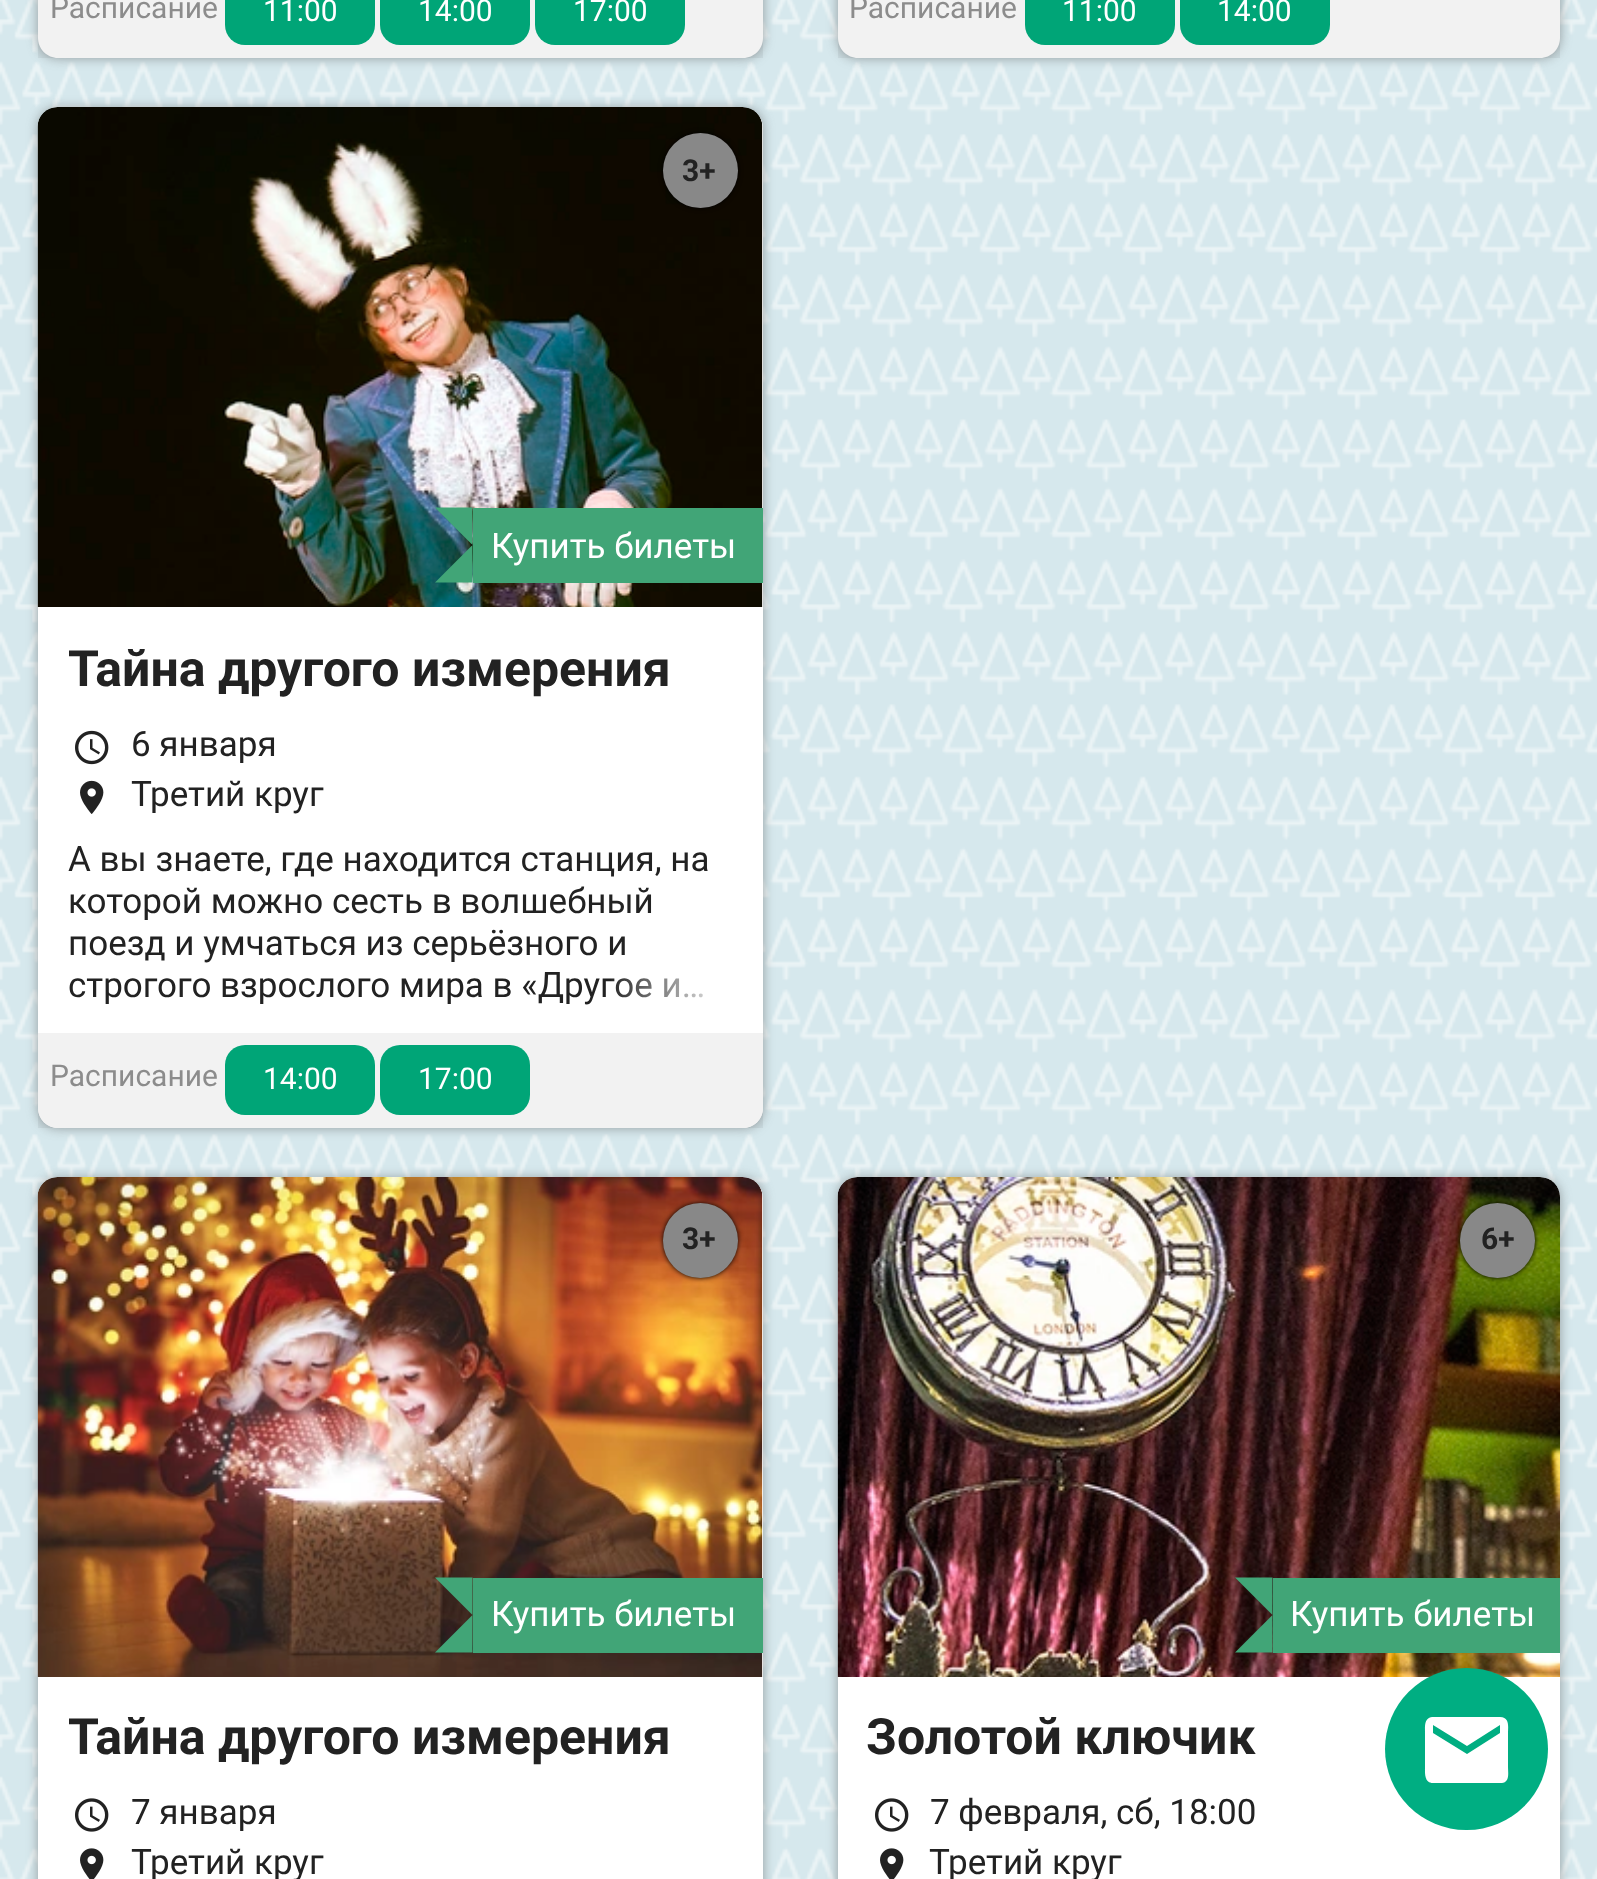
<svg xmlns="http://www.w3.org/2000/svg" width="1597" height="1879">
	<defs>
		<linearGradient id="g1" gradientUnits="userSpaceOnUse" x1="608" y1="983" x2="733" y2="983"><stop offset="0" stop-color="#FFFFFF" stop-opacity="0" /><stop offset="1" stop-color="#FFFFFF" /></linearGradient>
	</defs>
	<rect width="100%" height="100%" fill="#FFFFFF" />
	<image x="0" y="0" width="1597" height="1879" href="assets/img1.png" />
	<rect x="38" y="-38" width="725" height="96" rx="20" fill="#505050" fill-opacity="0.5" filter="blur(6px)" />
	<path d="M38-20H763V38C763 49 754 58 743 58H58C47 58 38 49 38 38Z" fill="#FFFFFF" />
	<rect x="38" y="0" width="725" height="58" fill="#000000" fill-opacity="0.05" />
	<text x="50" y="18" font-family="Roboto" font-size="30" fill="#8C8C8C">Расписание</text>
	<rect x="225" y="-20" width="150" height="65" rx="20" fill="#00A577" />
	<text x="263" y="21" font-family="Roboto" font-size="30" fill="#FFFFFF">11:00</text>
	<rect x="380" y="-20" width="150" height="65" rx="20" fill="#00A577" />
	<text x="418" y="21" font-family="Roboto" font-size="30" fill="#FFFFFF">14:00</text>
	<rect x="535" y="-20" width="150" height="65" rx="20" fill="#00A577" />
	<text x="573" y="21" font-family="Roboto" font-size="30" fill="#FFFFFF">17:00</text>
	<rect x="838" y="-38" width="722" height="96" rx="20" fill="#505050" fill-opacity="0.5" filter="blur(6px)" />
	<path d="M838-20H1560V38C1560 49 1551 58 1540 58H858C847 58 838 49 838 38Z" fill="#FFFFFF" />
	<rect x="838" y="0" width="722" height="58" fill="#000000" fill-opacity="0.05" />
	<text x="849" y="18" font-family="Roboto" font-size="30" fill="#8C8C8C">Расписание</text>
	<rect x="1025" y="-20" width="150" height="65" rx="20" fill="#00A577" />
	<text x="1062" y="21" font-family="Roboto" font-size="30" fill="#FFFFFF">11:00</text>
	<rect x="1180" y="-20" width="150" height="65" rx="20" fill="#00A577" />
	<text x="1217" y="21" font-family="Roboto" font-size="30" fill="#FFFFFF">14:00</text>
	<rect x="38" y="108" width="725" height="1020" rx="20" fill="#505050" fill-opacity="0.5" filter="blur(6px)" />
	<rect x="38" y="108" width="725" height="1020" rx="20" fill="#FFFFFF" />
	<image x="37" y="107" width="726" height="500" href="assets/img2.png" />
	<rect x="663" y="133" width="75" height="75" rx="37.5" fill="#000000" filter="blur(2.5px)" />
	<circle cx="700.5" cy="170.5" r="37.5" fill="#888888" />
	<text x="682" y="181" font-family="Roboto" font-size="30" font-weight="700" fill="#222222">3+</text>
	<rect x="473" y="508" width="290" height="75" fill="#41A577" />
	<path d="M435 507.5H472.5V545Z" fill="#41A577" />
	<path d="M472.5 582.5H435L472.5 545Z" fill="#41A577" />
	<text x="491" y="558" font-family="Roboto" font-size="35" fill="#FFFFFF">Купить билеты</text>
	<path d="M38 608H763V1108C763 1119 754 1128 743 1128H58C47 1128 38 1119 38 1108Z" fill="#FFFFFF" />
	<text x="68" y="686" font-family="Roboto" font-size="50" font-weight="700" fill="#222222">Тайна другого измерения</text>
	<image x="75" y="730" width="34" height="35" href="assets/img3.png" />
	<text x="131" y="756" font-family="Roboto" font-size="35" fill="#222222">6 января</text>
	<image x="80" y="780" width="24" height="34" href="assets/img4.png" />
	<g font-family="Roboto" font-size="35" fill="#222222">
		<text x="131" y="806">Третий круг</text>
		<text x="68" y="871">А вы знаете, где находится станция, на</text>
		<text x="68" y="913">которой можно сесть в волшебный</text>
		<text x="68" y="955">поезд и умчаться из серьёзного и</text>
		<text x="68" y="997">строгого взрослого мира в «Другое и…</text>
	</g>
	<rect x="611" y="978" width="92" height="20" fill="url(#g1)" />
	<rect x="38" y="1033" width="725" height="95" fill="#000000" fill-opacity="0.05" />
	<text x="50" y="1086" font-family="Roboto" font-size="30" fill="#8C8C8C">Расписание</text>
	<rect x="225" y="1045" width="150" height="70" rx="20" fill="#00A577" />
	<text x="263" y="1089" font-family="Roboto" font-size="30" fill="#FFFFFF">14:00</text>
	<rect x="380" y="1045" width="150" height="70" rx="20" fill="#00A577" />
	<text x="418" y="1089" font-family="Roboto" font-size="30" fill="#FFFFFF">17:00</text>
	<rect x="38" y="1178" width="725" height="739" rx="20" fill="#505050" fill-opacity="0.5" filter="blur(6px)" />
	<rect x="38" y="1178" width="725" height="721" rx="20" fill="#FFFFFF" />
	<image x="37" y="1177" width="726" height="500" href="assets/img5.png" />
	<rect x="663" y="1203" width="75" height="75" rx="37.5" fill="#000000" filter="blur(2.5px)" />
	<circle cx="700.5" cy="1240.5" r="37.5" fill="#888888" />
	<text x="682" y="1249" font-family="Roboto" font-size="30" font-weight="700" fill="#222222">3+</text>
	<rect x="473" y="1578" width="290" height="75" fill="#41A577" />
	<path d="M435 1577.5H472.5V1615Z" fill="#41A577" />
	<path d="M472.5 1652.5H435L472.5 1615Z" fill="#41A577" />
	<text x="491" y="1626" font-family="Roboto" font-size="35" fill="#FFFFFF">Купить билеты</text>
	<text x="68" y="1754" font-family="Roboto" font-size="50" font-weight="700" fill="#222222">Тайна другого измерения</text>
	<image x="75" y="1798" width="34" height="34" href="assets/img6.png" />
	<text x="131" y="1824" font-family="Roboto" font-size="35" fill="#222222">7 января</text>
	<image x="80" y="1848" width="24" height="31" href="assets/img7.png" />
	<text x="131" y="1874" font-family="Roboto" font-size="35" fill="#222222">Третий круг</text>
	<rect x="838" y="1178" width="722" height="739" rx="20" fill="#505050" fill-opacity="0.5" filter="blur(6px)" />
	<rect x="838" y="1178" width="722" height="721" rx="20" fill="#FFFFFF" />
	<image x="837" y="1177" width="723" height="500" href="assets/img8.png" />
	<rect x="1460" y="1203" width="75" height="75" rx="37.5" fill="#000000" filter="blur(2.5px)" />
	<circle cx="1497.5" cy="1240.5" r="37.5" fill="#888888" />
	<text x="1481" y="1249" font-family="Roboto" font-size="30" font-weight="700" fill="#222222">6+</text>
	<rect x="1273" y="1578" width="287" height="75" fill="#41A577" />
	<path d="M1235 1577.5H1272.5V1615Z" fill="#41A577" />
	<path d="M1272.5 1652.5H1235L1272.5 1615Z" fill="#41A577" />
	<text x="1290" y="1626" font-family="Roboto" font-size="35" fill="#FFFFFF">Купить билеты</text>
	<text x="866" y="1754" font-family="Roboto" font-size="50" font-weight="700" fill="#222222">Золотой ключик</text>
	<image x="875" y="1798" width="34" height="34" href="assets/img6.png" />
	<text x="930" y="1824" font-family="Roboto" font-size="35" fill="#222222">7 февраля, сб, 18:00</text>
	<image x="880" y="1848" width="24" height="31" href="assets/img7.png" />
	<text x="929" y="1874" font-family="Roboto" font-size="35" fill="#222222">Третий круг</text>
	<rect x="1385" y="1668" width="163" height="162" rx="81" fill="#00AE82" />
	<path d="M1500 1717C1510 1717 1508 1727 1508 1733V1767C1508 1773 1510 1782 1502 1783H1433C1424 1783 1425 1773 1425 1767V1733C1425 1727 1424 1718 1432 1717ZM1500 1733V1725L1467 1746L1433 1725V1733L1467 1754Z" fill="#FFFFFF" />
</svg>
